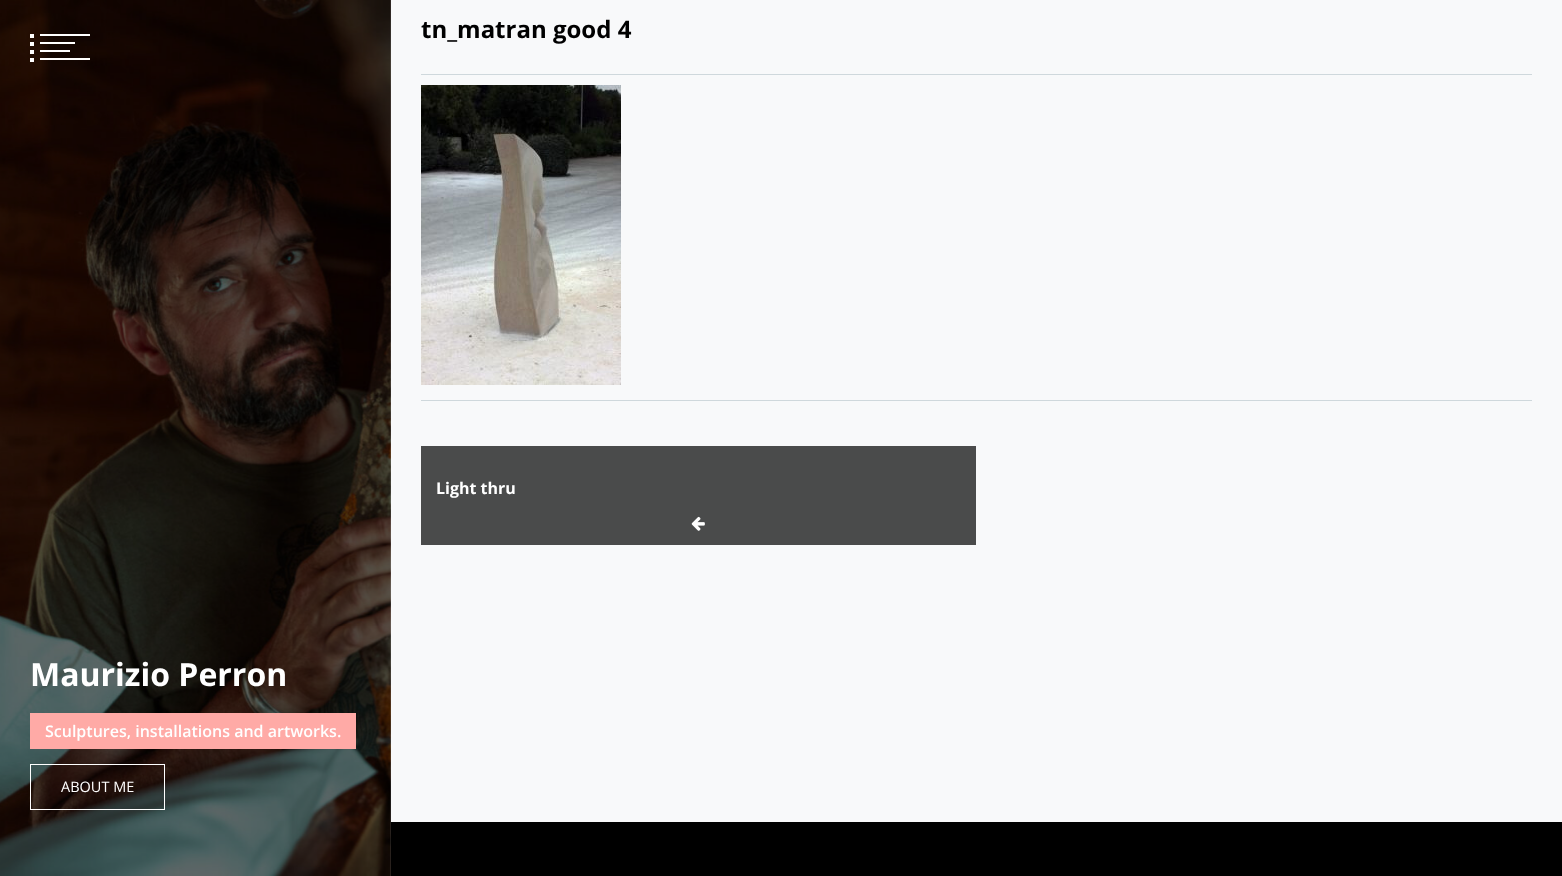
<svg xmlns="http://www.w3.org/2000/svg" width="1562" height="876">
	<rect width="100%" height="100%" fill="#FFFFFF" />
	<rect x="391" y="0" width="1171" height="822" fill="#F8F9FA" />
	<rect x="421" y="74" width="1111" height="1" fill="#CFD8DC" />
	<text x="421" y="38" font-family="Open Sans" font-size="24" font-weight="700" fill="#000000">tn_matran good 4</text>
	<image x="421" y="85" width="200" height="300" href="assets/img1.png" />
	<rect x="421" y="400" width="1111" height="1" fill="#CFD8DC" />
	<rect x="421" y="446" width="555" height="99" fill="#4A4B4B" />
	<text x="436" y="494" font-family="Open Sans" font-size="16" font-weight="700" fill="#FFFFFF">Light thru</text>
	<image x="691" y="516" width="14" height="15" href="assets/img2.png" />
	<image x="0" y="0" width="391" height="876" href="assets/img3.png" />
	<rect x="30" y="34" width="4" height="4" fill="#FFFFFF" />
	<rect x="40" y="34" width="50" height="2" fill="#FFFFFF" />
	<rect x="30" y="42" width="4" height="4" fill="#FFFFFF" />
	<rect x="40" y="42" width="35" height="2" fill="#FFFFFF" />
	<rect x="30" y="50" width="4" height="4" fill="#FFFFFF" />
	<rect x="40" y="50" width="30" height="2" fill="#FFFFFF" />
	<rect x="30" y="58" width="4" height="4" fill="#FFFFFF" />
	<rect x="40" y="58" width="50" height="2" fill="#FFFFFF" />
	<text x="30" y="686" font-family="Open Sans" font-size="32" font-weight="700" fill="#FFFFFF">Maurizio Perron</text>
	<rect x="30" y="713" width="326" height="36" fill="#FFAAA6" />
	<text x="45" y="737" font-family="Open Sans" font-size="16" font-weight="600" fill="#FFFFFF">Sculptures, installations and artworks.</text>
	<rect x="30.5" y="764.5" width="134" height="45" fill="none" stroke="#FFFFFF" />
	<text x="61" y="792" font-family="Open Sans" font-size="14.5" fill="#FFFFFF">ABOUT ME</text>
	<rect x="391" y="822" width="1171" height="54" fill="#000000" />
</svg>
